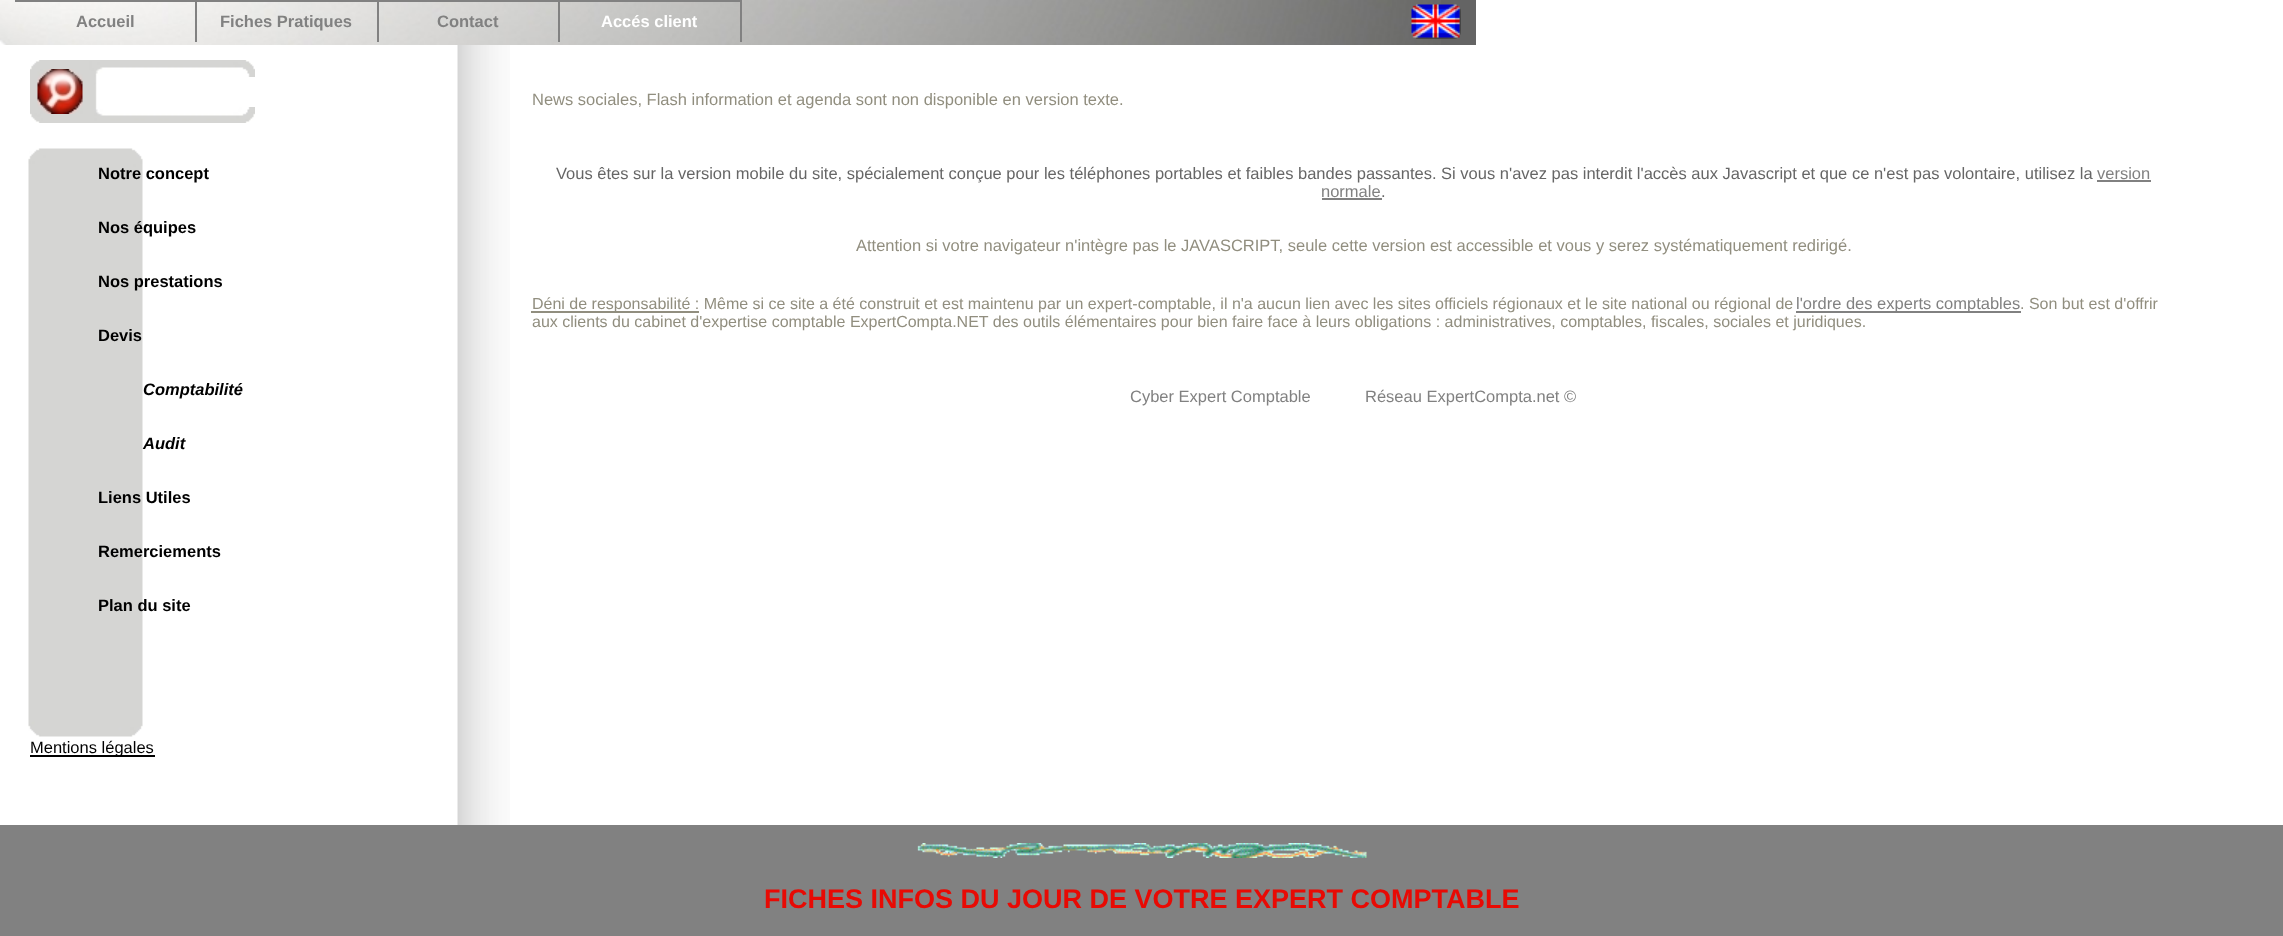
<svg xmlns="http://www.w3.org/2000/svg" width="2283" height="936">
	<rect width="100%" height="100%" fill="#818181" />
	<rect x="0" y="0" width="2283" height="825" fill="#FFFFFF" />
	<rect x="1441" y="0" width="35" height="45" fill="#646464" />
	<image x="0" y="0" width="1441" height="45" href="assets/img1.png" />
	<rect x="15" y="0" width="363" height="2" fill="#818181" />
	<rect x="195" y="0" width="2" height="42" fill="#818181" />
	<text x="76" y="27" font-family="Liberation Sans" font-size="16.5" font-weight="700" fill="#818181">Accueil</text>
	<rect x="377" y="0" width="2" height="42" fill="#818181" />
	<text x="220" y="27" font-family="Liberation Sans" font-size="16.5" font-weight="700" fill="#818181">Fiches Pratiques</text>
	<rect x="378" y="0" width="363" height="2" fill="#818181" />
	<rect x="558" y="0" width="2" height="42" fill="#818181" />
	<text x="437" y="27" font-family="Liberation Sans" font-size="16.5" font-weight="700" fill="#818181">Contact</text>
	<rect x="740" y="0" width="2" height="42" fill="#818181" />
	<text x="601" y="27" font-family="Liberation Sans" font-size="16.5" font-weight="700" fill="#FFFFFF">Accés client</text>
	<image x="1411" y="4" width="50" height="35" href="assets/img2.png" />
	<image x="30" y="60" width="225" height="63" href="assets/img3.png" />
	<image x="37" y="69" width="46" height="45" href="assets/img4.png" />
	<rect x="248" y="77" width="7" height="30" fill="#FFFFFF" />
	<image x="28" y="148" width="115" height="589" href="assets/img5.png" />
	<g font-family="Liberation Sans" font-size="16.5" font-weight="700" fill="#000000">
		<text x="98" y="179">Notre concept</text>
		<text x="98" y="233">Nos équipes</text>
		<text x="98" y="287">Nos prestations</text>
		<text x="98" y="341">Devis</text>
	</g>
	<g font-family="Liberation Sans" font-size="16.5" font-weight="700" font-style="italic" fill="#000000">
		<text x="143" y="395">Comptabilité</text>
		<text x="143" y="449">Audit</text>
	</g>
	<g font-family="Liberation Sans" font-size="16.5" font-weight="700" fill="#000000">
		<text x="98" y="503">Liens Utiles</text>
		<text x="98" y="557">Remerciements</text>
		<text x="98" y="611">Plan du site</text>
	</g>
	<rect x="30" y="755" width="125" height="2" fill="#000000" />
	<text x="30" y="753" font-family="Liberation Sans" font-size="16.5" fill="#000000">Mentions légales</text>
	<image x="457" y="45" width="53" height="780" href="assets/img6.png" />
	<text x="532" y="105" font-family="Liberation Sans" font-size="16.5" fill="#918E7F">News sociales, Flash information et agenda sont non disponible en version texte.</text>
	<text x="556" y="179" font-family="Liberation Sans" font-size="16.5" fill="#666666">Vous êtes sur la version mobile du site, spécialement conçue pour les téléphones portables et faibles bandes passantes. Si vous n'avez pas interdit l'accès aux Javascript et que ce n'est pas volontaire, utilisez la</text>
	<text x="2097" y="179" font-family="Liberation Sans" font-size="16.5" fill="#818181">version</text>
	<rect x="2097" y="180" width="54" height="2" fill="#818181" />
	<text x="1321" y="197" font-family="Liberation Sans" font-size="16.5" fill="#818181">normale</text>
	<text x="1381" y="197" font-family="Liberation Sans" font-size="16.5" fill="#666666">.</text>
	<rect x="1322" y="198" width="60" height="2" fill="#818181" />
	<text x="856" y="251" font-family="Liberation Sans" font-size="16.5" fill="#918E7F">Attention si votre navigateur n'intègre pas le JAVASCRIPT, seule cette version est accessible et vous y serez systématiquement redirigé.</text>
	<rect x="531" y="311" width="168" height="2" fill="#918E7F" />
	<text x="532" y="309" font-family="Liberation Sans" font-size="16" fill="#918E7F">Déni de responsabilité : Même si ce site a été construit et est maintenu par un expert-comptable, il n'a aucun lien avec les sites officiels régionaux et le site national ou régional de</text>
	<rect x="1796" y="311" width="225" height="2" fill="#818181" />
	<text x="1796" y="309" font-family="Liberation Sans" font-size="16.5" fill="#818181">l'ordre des experts comptables</text>
	<g font-family="Liberation Sans" font-size="16" fill="#918E7F">
		<text x="2020" y="309">. Son but est d'offrir</text>
		<text x="532" y="327">aux clients du cabinet d'expertise comptable ExpertCompta.NET des outils élémentaires pour bien faire face à leurs obligations : administratives, comptables, fiscales, sociales et juridiques.</text>
	</g>
	<g font-family="Liberation Sans" font-size="16.5" fill="#818181">
		<text x="1130" y="402">Cyber Expert Comptable</text>
		<text x="1365" y="402">Réseau ExpertCompta.net ©</text>
	</g>
	<image x="917" y="843" width="450" height="15" href="assets/img7.png" />
	<text x="764" y="908" font-family="Liberation Sans" font-size="27" font-weight="700" fill="#E80A04">FICHES INFOS DU JOUR DE VOTRE EXPERT COMPTABLE</text>
</svg>
